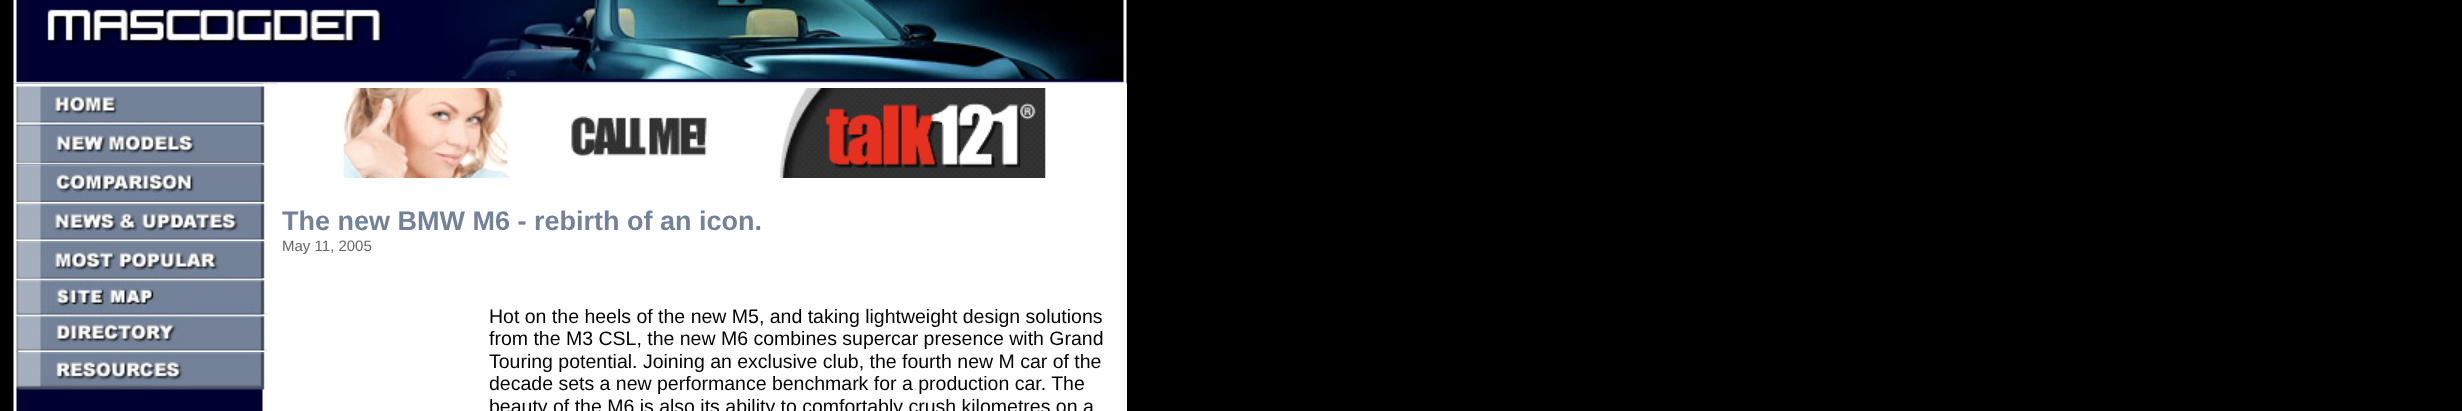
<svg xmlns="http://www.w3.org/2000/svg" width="2462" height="411">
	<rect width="100%" height="100%" fill="#000000" />
	<image x="13" y="83" width="264" height="328" href="assets/img2.png" />
	<rect x="277" y="83" width="850" height="328" fill="#FFFFFF" />
	<image x="13" y="0" width="1115" height="84" href="assets/img1.png" />
	<image x="13" y="83" width="264" height="43" href="assets/img3.png" />
	<image x="15" y="125" width="250" height="40" href="assets/img4.png" />
	<image x="16" y="164" width="249" height="38" href="assets/img5.png" />
	<image x="15" y="202" width="250" height="39" href="assets/img6.png" />
	<image x="16" y="241" width="249" height="38" href="assets/img7.png" />
	<image x="12" y="278" width="257" height="37" href="assets/img8.png" />
	<image x="15" y="314" width="253" height="38" href="assets/img9.png" />
	<image x="15" y="352" width="250" height="40" href="assets/img10.png" />
	<image x="343" y="88" width="703" height="90" href="assets/img11.png" />
	<text x="282" y="230" font-family="Liberation Sans" font-size="27" font-weight="700" fill="#738299">The new BMW M6 - rebirth of an icon.</text>
	<text x="282" y="251" font-family="Liberation Sans" font-size="15" fill="#666666">May 11, 2005</text>
	<g font-family="Liberation Sans" font-size="19.5" fill="#000000">
		<text x="489" y="323">Hot on the heels of the new M5, and taking lightweight design solutions</text>
		<text x="489" y="345">from the M3 CSL, the new M6 combines supercar presence with Grand</text>
		<text x="489" y="368">Touring potential. Joining an exclusive club, the fourth new M car of the</text>
		<text x="489" y="390">decade sets a new performance benchmark for a production car. The</text>
		<text x="489" y="413">beauty of the M6 is also its ability to comfortably crush kilometres on a</text>
	</g>
</svg>
